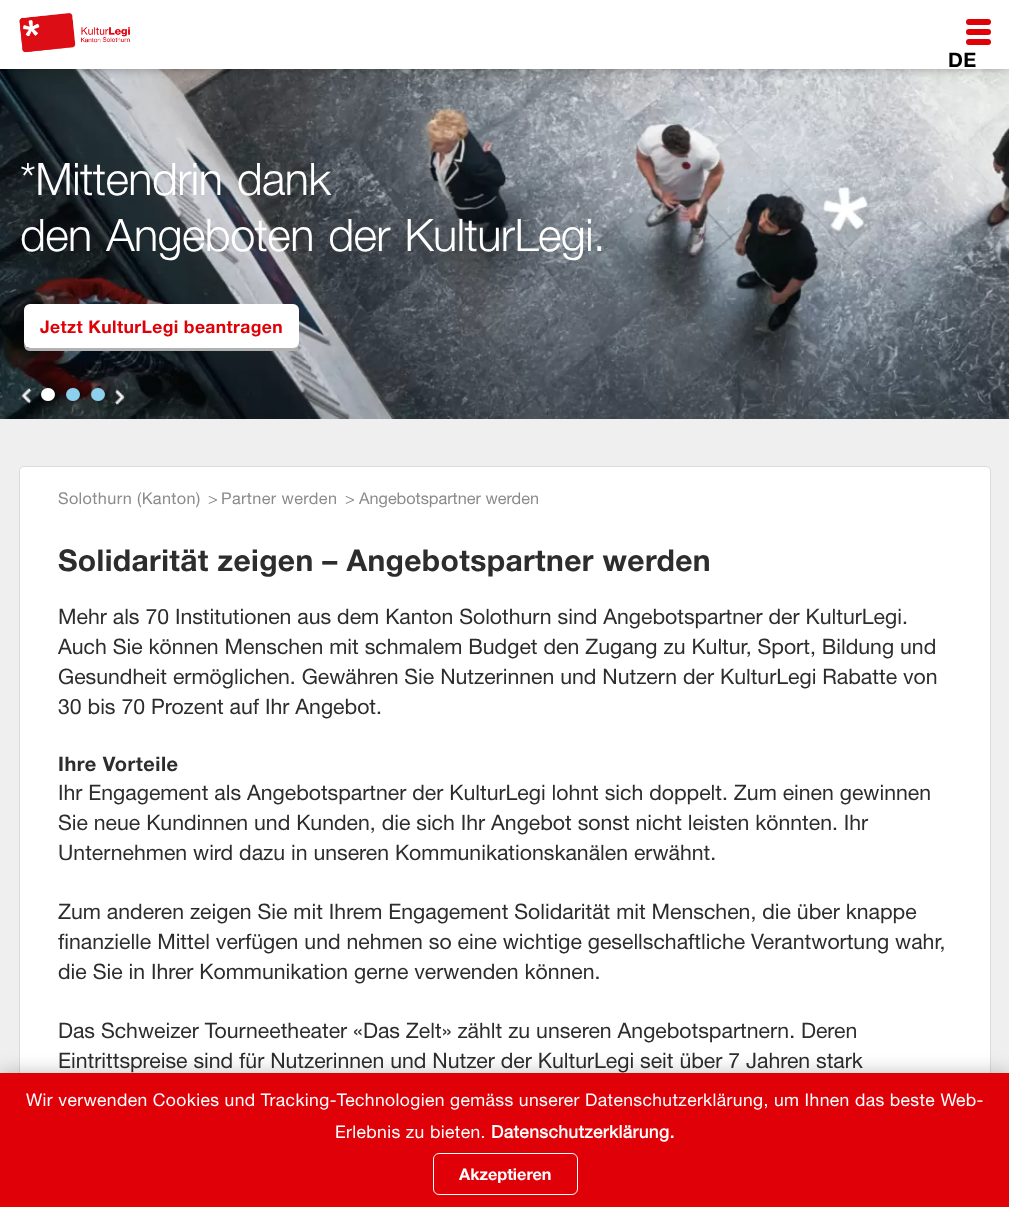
<svg xmlns="http://www.w3.org/2000/svg" width="1009" height="1207">
	<rect width="100%" height="100%" fill="#EFEFEF" />
	<image x="0" y="69" width="1009" height="350" href="assets/img2.png" />
	<rect x="0" y="0" width="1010" height="69" fill="#000000" fill-opacity="0.3" filter="blur(5px)" />
	<rect x="0" y="0" width="1009" height="69" fill="#FFFFFF" />
	<image x="19" y="13" width="111" height="40" href="assets/img1.png" />
	<rect x="966" y="19" width="25" height="6" rx="3" fill="#DF0008" />
	<rect x="966" y="29" width="25" height="6" rx="3" fill="#DF0008" />
	<rect x="966" y="39" width="25" height="6" rx="3" fill="#DF0008" />
	<text x="948" y="67" font-family="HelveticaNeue" font-size="20" font-weight="700" letter-spacing="0.38" fill="#010101">DE</text>
	<g font-family="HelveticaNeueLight" font-size="45" letter-spacing="-0.55" fill="#FFFFFF">
		<text x="20" y="195" word-spacing="2.5">*Mittendrin dank</text>
		<text x="20" y="251" word-spacing="2.5">den Angeboten der KulturLegi.</text>
	</g>
	<path d="M24 343C24 347 25 351 30 351H293C301 351 299 340 299 335V312V341C299 345 296 348 292 348H30C27 348 25 346 24 343Z" fill="#B2B2B2" />
	<rect x="24" y="304" width="275" height="44" rx="6" fill="#FFFFFF" />
	<text x="40" y="333" font-family="HelveticaNeue" font-size="17.5" font-weight="700" letter-spacing="0.38" fill="#DF0008">Jetzt KulturLegi beantragen</text>
	<image x="21" y="388" width="11" height="16" href="assets/img3.png" />
	<rect x="44" y="388" width="14" height="13" rx="6.5" fill="#000000" fill-opacity="0.65" filter="blur(4px)" />
	<rect x="41" y="388" width="14" height="13" rx="6.5" fill="#FFFFFF" />
	<rect x="69" y="388" width="14" height="13" rx="6.5" fill="#000000" fill-opacity="0.65" filter="blur(4px)" />
	<rect x="66" y="388" width="14" height="13" rx="6.5" fill="#8CD0ED" />
	<rect x="94" y="388" width="14" height="13" rx="6.5" fill="#000000" fill-opacity="0.65" filter="blur(4px)" />
	<rect x="91" y="388" width="14" height="13" rx="6.5" fill="#8CD0ED" />
	<image x="114" y="389" width="11" height="16" href="assets/img4.png" />
	<rect x="19.5" y="466.5" width="971" height="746" rx="4.5" fill="#FFFFFF" stroke="#DBDBDB" />
	<text x="58" y="504" font-family="HelveticaNeue" font-size="16.25" letter-spacing="0.38" fill="#8B8B8B">Solothurn (Kanton)</text>
	<text x="208" y="504" font-family="HelveticaNeue" font-size="16.25" fill="#8B8B8B">&gt;</text>
	<text x="221" y="504" font-family="HelveticaNeue" font-size="16.25" letter-spacing="0.38" fill="#8B8B8B">Partner werden</text>
	<g font-family="HelveticaNeue" font-size="16.25" fill="#8B8B8B">
		<text x="345" y="504">&gt;</text>
		<text x="359" y="504">Angebotspartner werden</text>
	</g>
	<text x="58" y="571" font-family="HelveticaNeue" font-size="30" font-weight="700" letter-spacing="0.38" fill="#2D2D2D">Solidarität zeigen – Angebotspartner werden</text>
	<g font-family="HelveticaNeue" font-size="21.25" fill="#2D2D2D">
		<text x="58" y="624">Mehr als 70 Institutionen aus dem Kanton Solothurn sind Angebotspartner der KulturLegi.</text>
		<text x="58" y="654">Auch Sie können Menschen mit schmalem Budget den Zugang zu Kultur, Sport, Bildung und</text>
		<text x="58" y="684">Gesundheit ermöglichen. Gewähren Sie Nutzerinnen und Nutzern der KulturLegi Rabatte von</text>
		<text x="58" y="714">30 bis 70 Prozent auf Ihr Angebot.</text>
	</g>
	<text x="58" y="771" font-family="HelveticaNeue" font-size="20" font-weight="700" letter-spacing="0.5" fill="#2D2D2D">Ihre Vorteile</text>
	<g font-family="HelveticaNeue" font-size="21.25" fill="#2D2D2D">
		<text x="58" y="800">Ihr Engagement als Angebotspartner der KulturLegi lohnt sich doppelt. Zum einen gewinnen</text>
		<text x="58" y="830">Sie neue Kundinnen und Kunden, die sich Ihr Angebot sonst nicht leisten könnten. Ihr</text>
		<text x="58" y="860">Unternehmen wird dazu in unseren Kommunikationskanälen erwähnt.</text>
		<text x="58" y="919">Zum anderen zeigen Sie mit Ihrem Engagement Solidarität mit Menschen, die über knappe</text>
		<text x="58" y="949">finanzielle Mittel verfügen und nehmen so eine wichtige gesellschaftliche Verantwortung wahr,</text>
		<text x="58" y="979">die Sie in Ihrer Kommunikation gerne verwenden können.</text>
		<text x="58" y="1038">Das Schweizer Tourneetheater «Das Zelt» zählt zu unseren Angebotspartnern. Deren</text>
		<text x="58" y="1068">Eintrittspreise sind für Nutzerinnen und Nutzer der KulturLegi seit über 7 Jahren stark</text>
	</g>
	<rect x="0" y="1073" width="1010" height="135" fill="#000000" fill-opacity="0.25" filter="blur(9.5px)" />
	<rect x="0" y="1073" width="1009" height="134" fill="#DF0008" />
	<g font-family="HelveticaNeue" font-size="17.5" letter-spacing="0.38" fill="#FFFFFF">
		<text x="26" y="1106">Wir verwenden Cookies und Tracking-Technologien gemäss unserer Datenschutzerklärung, um Ihnen das beste Web-</text>
		<text x="335" y="1138">Erlebnis zu bieten.</text>
	</g>
	<text x="491" y="1138" font-family="'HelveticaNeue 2'" font-size="17.5" font-weight="700" letter-spacing="0.38" fill="#FFFFFF">Datenschutzerklärung.</text>
	<rect x="433.5" y="1153.5" width="144" height="41" rx="5.5" fill="none" stroke="#FFFFFF" />
	<text x="459" y="1180" font-family="HelveticaNeue" font-size="16.25" font-weight="700" fill="#FFFFFF">Akzeptieren</text>
</svg>
